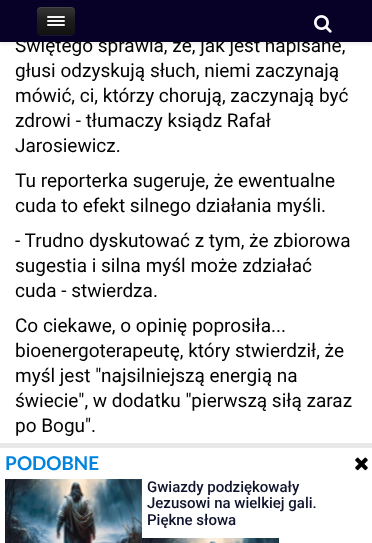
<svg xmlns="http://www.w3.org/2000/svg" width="372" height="543">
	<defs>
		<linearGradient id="g1" gradientUnits="userSpaceOnUse" x1="56" y1="35" x2="56" y2="7"><stop offset="0.01" stop-color="#111111" /><stop offset="0.57" stop-color="#1F1F1F" /><stop offset="0.85" stop-color="#303030" /></linearGradient>
	</defs>
	<rect width="100%" height="100%" fill="#FFFFFF" />
	<rect x="0" y="3" width="372" height="42" fill="#000000" fill-opacity="0.05" filter="blur(1.5px)" />
	<text x="15" y="52" font-family="Roboto" font-size="19" fill="#000000">Świętego sprawia, że, jak jest napisane,</text>
	<rect x="0" y="0" width="372" height="42" fill="#070027" />
	<path d="M37 31C37 37 41.5 36 46 36H66C70.5 36 75 37 75 31C75 33 73 35 71 35H41C39 35 37 33 37 31Z" fill="#1A1337" />
	<rect x="37" y="7" width="38" height="28" rx="4" fill="url(#g1)" />
	<path d="M41 8H71C73 8 75 10 75 12C75 6 70.5 7 66 7H46C41.5 7 37 6 37 12C37 10 39 8 41 8Z" fill="#FFFFFF" fill-opacity="0.1" />
	<path d="M47 17.5C46 19.5 50.5 19 50.5 19H61.5C61.5 19 66 19.5 65 17.5C64 18.5 57.5 18 56 18C54.5 18 48 18.5 47 17.5Z" fill="#181818" />
	<rect x="47" y="16" width="18" height="2" rx="1" fill="#F5F5F5" />
	<path d="M47 21.5C46 23.5 50.5 23 50.5 23H61.5C61.5 23 66 23.5 65 21.5C64 22.5 57.5 22 56 22C54.5 22 48 22.5 47 21.5Z" fill="#151515" />
	<rect x="47" y="20" width="18" height="2" rx="1" fill="#F5F5F5" />
	<path d="M47 25.5C46 27.5 50.5 27 50.5 27H61.5C61.5 27 66 27.5 65 25.5C64 26.5 57.5 26 56 26C54.5 26 48 26.5 47 25.5Z" fill="#121212" />
	<rect x="47" y="24" width="18" height="2" rx="1" fill="#F5F5F5" />
	<image x="314" y="15" width="18" height="18" href="assets/img1.png" />
	<g font-family="Roboto" font-size="19" fill="#000000">
		<text x="15" y="77">głusi odzyskują słuch, niemi zaczynają</text>
		<text x="15" y="102">mówić, ci, którzy chorują, zaczynają być</text>
		<text x="15" y="127">zdrowi - tłumaczy ksiądz Rafał</text>
		<text x="15" y="152">Jarosiewicz.</text>
		<text x="15" y="187">Tu reporterka sugeruje, że ewentualne</text>
		<text x="15" y="212">cuda to efekt silnego działania myśli.</text>
		<text x="15" y="247">- Trudno dyskutować z tym, że zbiorowa</text>
		<text x="15" y="272">sugestia i silna myśl może zdziałać</text>
		<text x="15" y="297">cuda - stwierdza.</text>
		<text x="15" y="332">Co ciekawe, o opinię poprosiła...</text>
		<text x="15" y="357">bioenergoterapeutę, który stwierdził, że</text>
		<text x="15" y="382">myśl jest "najsilniejszą energią na</text>
		<text x="15" y="407">świecie", w dodatku "pierwszą siłą zaraz</text>
		<text x="15" y="432">po Bogu".</text>
	</g>
	<rect x="0" y="443" width="372" height="5" fill="#E8E8E8" />
	<text x="5" y="470" font-family="Lato" font-size="19" font-weight="700" fill="#0084DD">PODOBNE</text>
	<image x="355" y="457" width="13" height="14" href="assets/img2.png" />
	<image x="5" y="479" width="137" height="64" href="assets/img3.png" />
	<g font-family="Roboto" font-size="15" font-weight="500" fill="#10132C">
		<text x="147" y="492">Gwiazdy podziękowały</text>
		<text x="147" y="508">Jezusowi na wielkiej gali.</text>
		<text x="147" y="525">Piękne słowa</text>
	</g>
	<image x="142" y="538" width="137" height="5" href="assets/img4.png" />
</svg>
